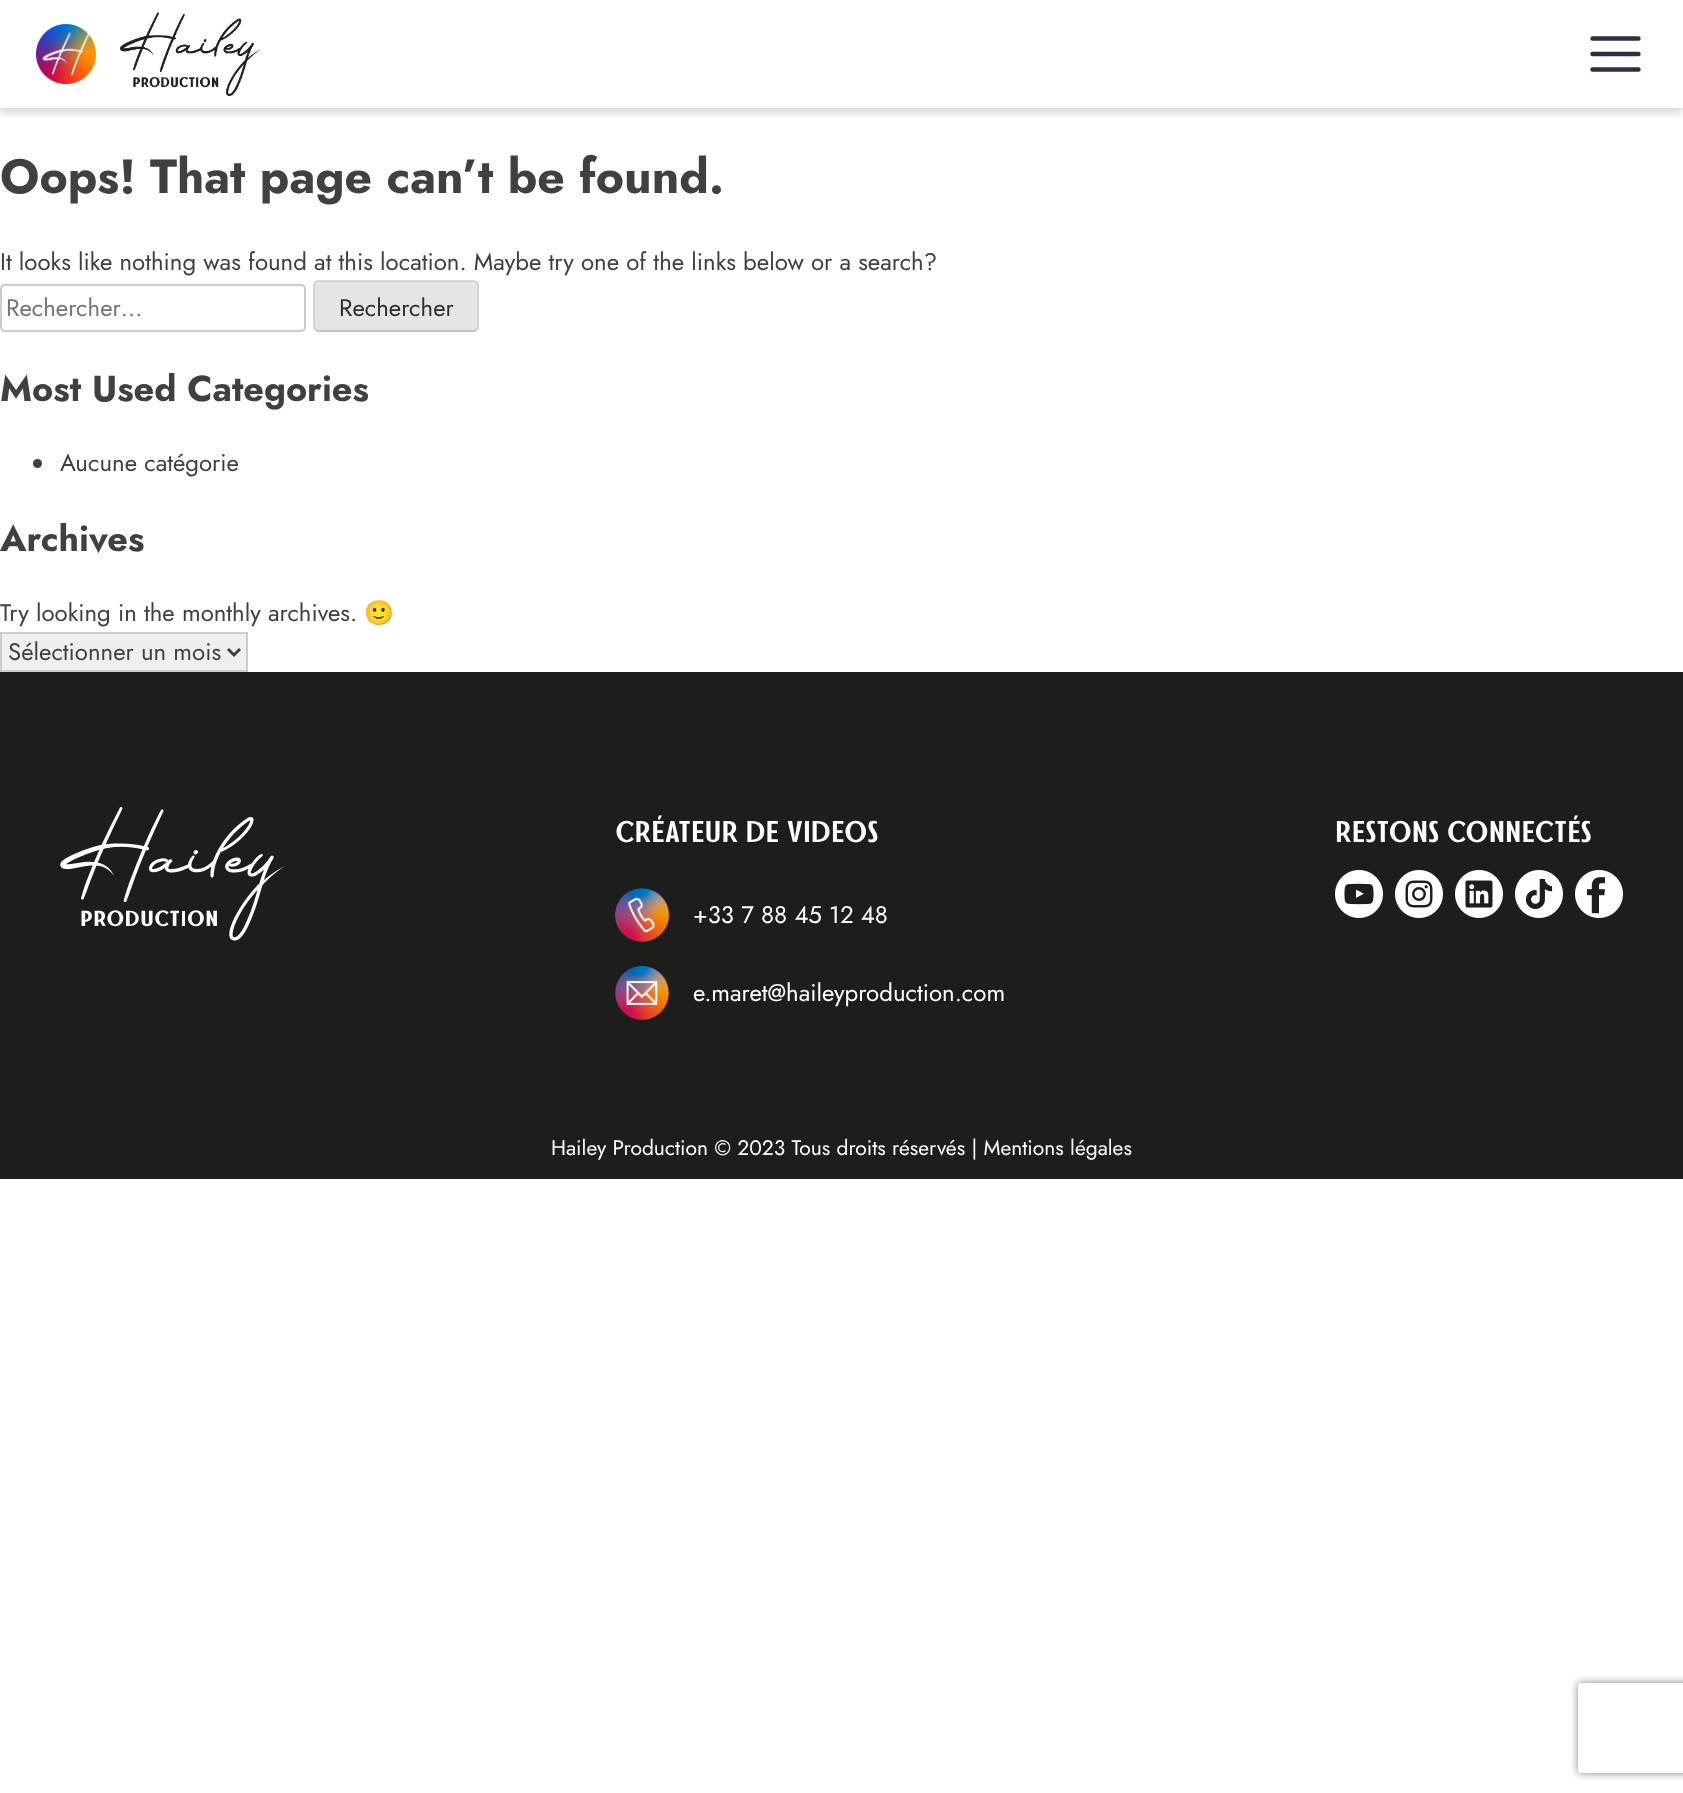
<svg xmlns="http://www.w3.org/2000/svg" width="1683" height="1793">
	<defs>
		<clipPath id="clip1"><rect x="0" y="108" width="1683" height="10" /></clipPath>
		<clipPath id="clip2"><path d="M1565 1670H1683V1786H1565ZM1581 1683H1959C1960.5 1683 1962 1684.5 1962 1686V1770C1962 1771.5 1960.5 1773 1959 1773H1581C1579.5 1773 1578 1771.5 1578 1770V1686C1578 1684.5 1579.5 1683 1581 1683Z" clip-rule="evenodd" /></clipPath>
	</defs>
	<rect width="100%" height="100%" fill="#FFFFFF" />
	<g clip-path="url(#clip1)">
		<rect x="0" y="5" width="1683" height="108" fill="#000000" fill-opacity="0.16" filter="blur(4.5px)" />
	</g>
	<image x="36" y="24" width="60" height="60" href="assets/img1.png" />
	<image x="120" y="12" width="141" height="84" href="assets/img2.png" />
	<path d="M1592.5 54H1638.5M1592.5 38.5H1638.5M1592.5 69.5H1638.5" fill="none" stroke="#283046" stroke-width="4.4" stroke-linecap="round" stroke-linejoin="round" />
	<text x="0" y="193" font-family="Jost" font-size="48" font-weight="700" fill="#404040">Oops! That page can’t be found.</text>
	<text x="0" y="270" font-family="Jost" font-size="24" fill="#404040">It looks like nothing was found at this location. Maybe try one of the links below or a search?</text>
	<rect x="1" y="285" width="304" height="46" rx="4" fill="none" stroke="#CCCCCC" stroke-width="2" />
	<text x="6" y="316" font-family="Jost" font-size="24" fill="#757575">Rechercher…</text>
	<rect x="314" y="281" width="165" height="51" rx="5" fill="#E6E6E6" />
	<path d="M476.5 329.5C476 330.5 475 331 474 331H318C317 331 316 330.5 315.5 329.5" fill="none" stroke="#BBBBBB" stroke-width="1.5" />
	<path d="M315.5 329.5C314.5 329 314 328 314 327V285C314 284 314.5 283 315.5 282.5C316 281.5 317 281 318 281H474C475 281 476 281.5 476.5 282.5C477.5 283 478 284 478 285V327C478 328 477.5 329 476.5 329.5" fill="none" stroke="#CCCCCC" stroke-width="1.5" />
	<text x="339" y="316" font-family="Jost" font-size="24" fill="#2E2E2E">Rechercher</text>
	<text x="0" y="401" font-family="Jost" font-size="36" font-weight="700" fill="#404040">Most Used Categories</text>
	<circle cx="37.5" cy="463.5" r="4.5" fill="#404040" />
	<text x="60" y="471" font-family="Jost" font-size="24" fill="#404040">Aucune catégorie</text>
	<text x="0" y="551" font-family="Jost" font-size="36" font-weight="700" fill="#404040">Archives</text>
	<text x="0" y="621" font-family="Jost" font-size="24" fill="#404040">Try looking in the monthly archives.</text>
	<text x="364" y="621" font-family="Noto Color Emoji" font-size="24" fill="#404040">🙂</text>
	<rect x="1" y="633" width="246" height="38" fill="#EFEFEF" stroke="#CCCCCC" stroke-width="2" />
	<path d="M228 649L234 655L240 649" fill="none" stroke="#404040" stroke-width="3" />
	<text x="8" y="660" font-family="Jost" font-size="24" fill="#404040">Sélectionner un mois</text>
	<rect x="0" y="672" width="1683" height="507" fill="#1D1D1B" />
	<image x="60" y="807" width="225" height="134" href="assets/img3.png" />
	<text x="615" y="842" font-family="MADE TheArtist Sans" font-size="30" fill="#FFFFFF">CRÉATEUR DE VIDEOS</text>
	<image x="615" y="888" width="54" height="54" href="assets/img4.png" />
	<text x="693" y="923" font-family="Jost" font-size="24" fill="#FFFFFF">+33 7 88 45 12 48</text>
	<image x="615" y="966" width="54" height="54" href="assets/img5.png" />
	<text x="693" y="1001" font-family="Jost" font-size="24" fill="#FFFFFF">e.maret@haileyproduction.com</text>
	<text x="1335" y="842" font-family="MADE TheArtist Sans" font-size="30" fill="#FFFFFF">RESTONS CONNECTÉS</text>
	<image x="1335" y="870" width="48" height="48" href="assets/img6.png" />
	<image x="1395" y="870" width="48" height="48" href="assets/img7.png" />
	<image x="1455" y="870" width="48" height="48" href="assets/img8.png" />
	<image x="1515" y="870" width="48" height="48" href="assets/img9.png" />
	<image x="1575" y="870" width="48" height="48" href="assets/img10.png" />
	<text x="551" y="1155" font-family="Jost" font-size="21" fill="#FFFFFF">Hailey Production © 2023 Tous droits réservés | Mentions légales</text>
	<g clip-path="url(#clip2)">
		<rect x="1578" y="1683" width="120" height="90" rx="3" fill="#808080" filter="blur(4px)" />
	</g>
</svg>
